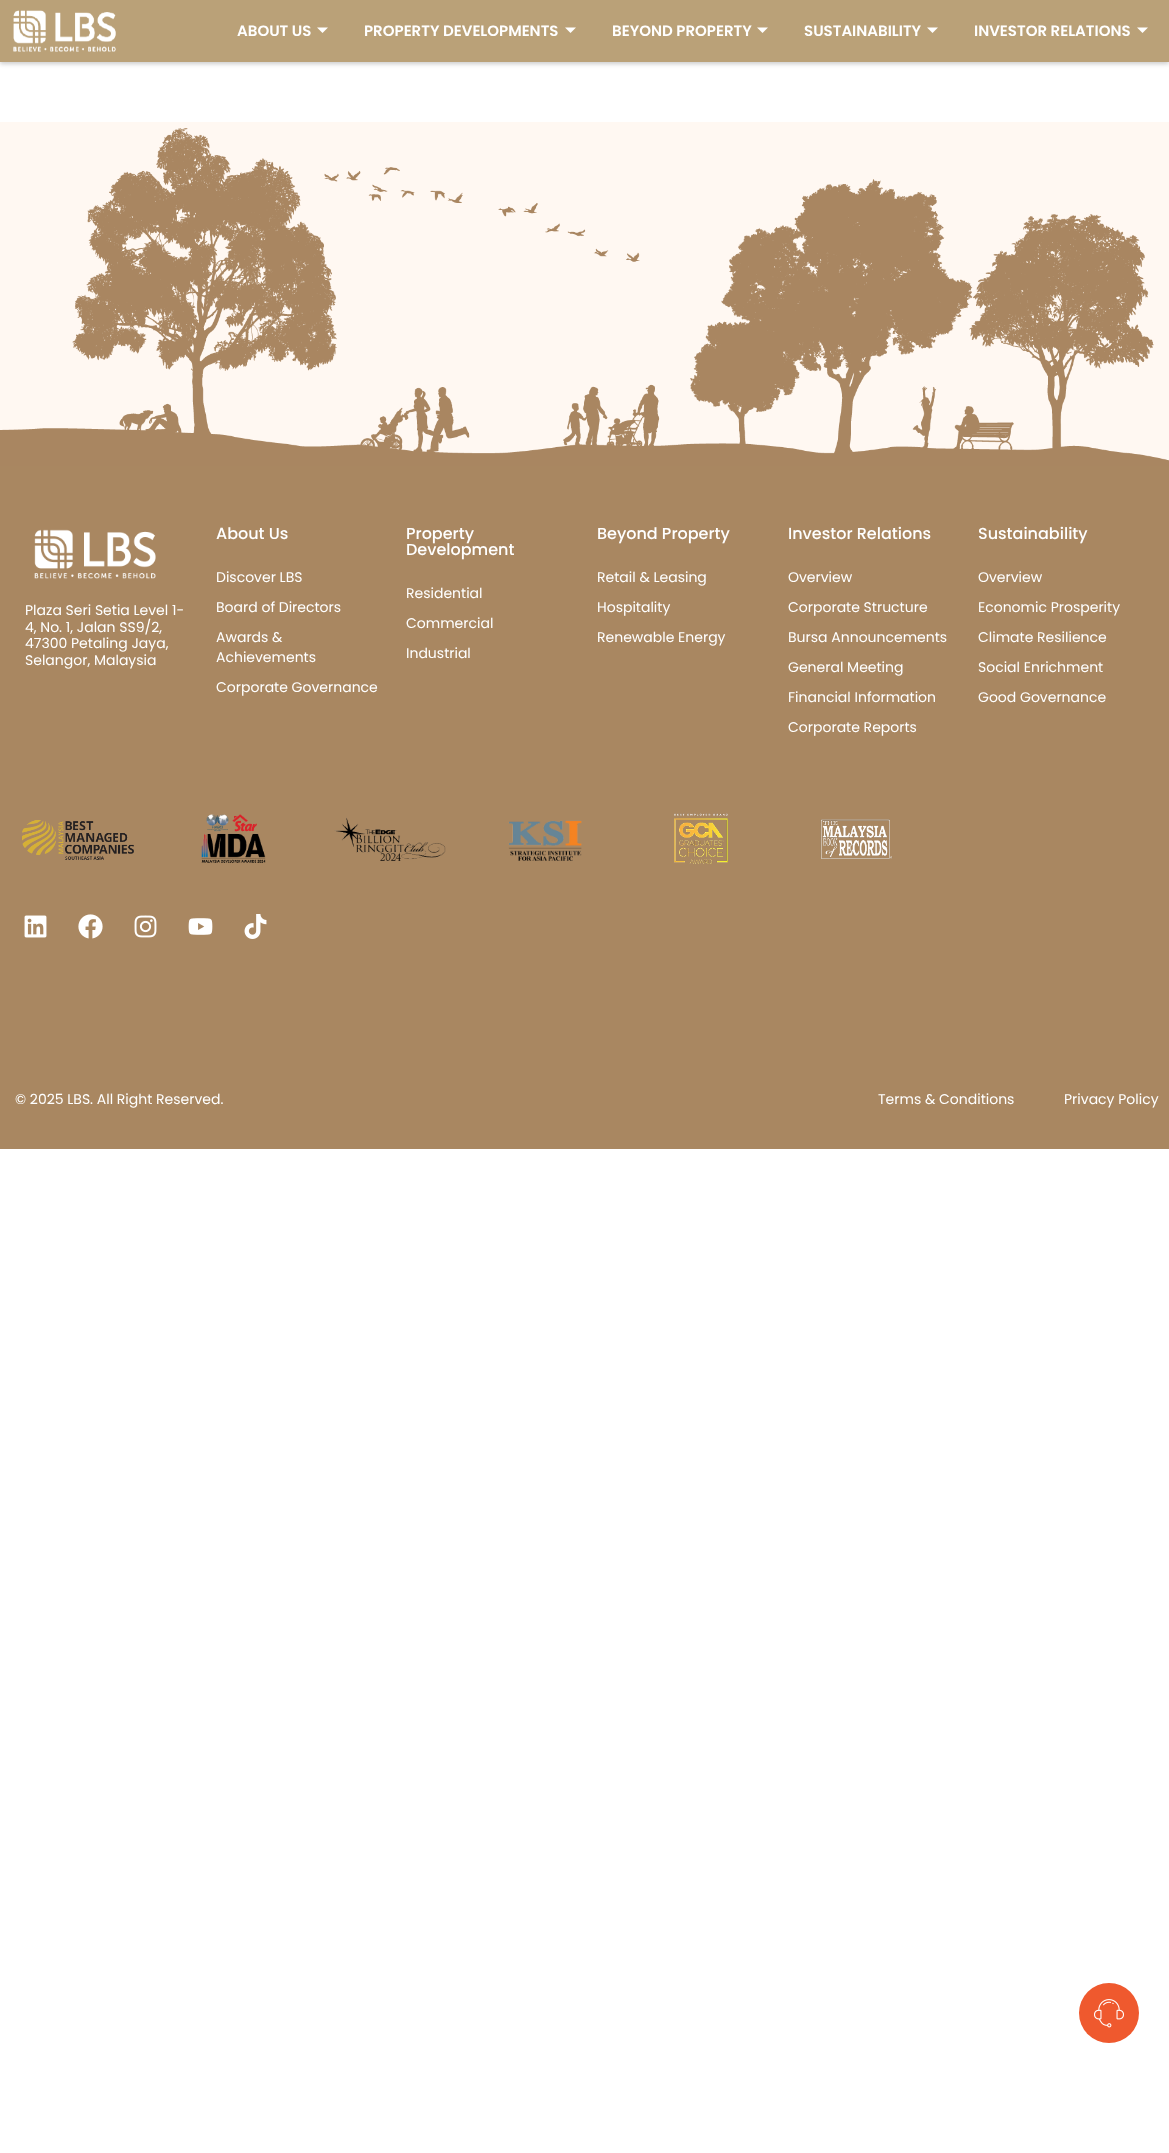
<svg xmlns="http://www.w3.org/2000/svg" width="1169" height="2153">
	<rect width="100%" height="100%" fill="#FFFFFF" />
	<rect x="0" y="2" width="1169" height="62" fill="#000000" fill-opacity="0.2" filter="blur(2px)" />
	<rect x="0" y="0" width="1169" height="62" fill="#BAA178" />
	<image x="13" y="10" width="103" height="42" href="assets/img1.png" />
	<text x="237" y="36" font-family="Poppins" font-size="15" font-weight="600" fill="#FFFFFF">ABOUT US</text>
	<path d="M317 27.5H328L322.5 33Z" fill="#FFFFFF" />
	<text x="364" y="36" font-family="Poppins" font-size="15" font-weight="600" fill="#FFFFFF">PROPERTY DEVELOPMENTS</text>
	<path d="M565 27.5H576L570.5 33Z" fill="#FFFFFF" />
	<text x="612" y="36" font-family="Poppins" font-size="15" font-weight="600" fill="#FFFFFF">BEYOND PROPERTY</text>
	<path d="M757 27.5H768L762.5 33Z" fill="#FFFFFF" />
	<text x="804" y="36" font-family="Poppins" font-size="15" font-weight="600" fill="#FFFFFF">SUSTAINABILITY</text>
	<path d="M927 27.5H938L932.5 33Z" fill="#FFFFFF" />
	<text x="974" y="36" font-family="Poppins" font-size="15" font-weight="600" fill="#FFFFFF">INVESTOR RELATIONS</text>
	<path d="M1137 27.5H1148L1142.5 33Z" fill="#FFFFFF" />
	<rect x="0" y="122" width="1169" height="339" fill="#FFF8F2" />
	<image x="0" y="128" width="1169" height="338" href="assets/img2.png" />
	<rect x="0" y="466" width="1169" height="683" fill="#A98761" />
	<image x="34" y="529" width="122" height="50" href="assets/img3.png" />
	<g font-family="Poppins" font-size="14" fill="#FFFFFF">
		<text x="25" y="615">Plaza Seri Setia Level 1-</text>
		<text x="25" y="632">4, No. 1, Jalan SS9/2,</text>
		<text x="25" y="648">47300 Petaling Jaya,</text>
		<text x="25" y="665">Selangor, Malaysia</text>
	</g>
	<text x="216" y="539" font-family="Poppins" font-size="16" font-weight="500" fill="#FFFFFF">About Us</text>
	<g font-family="Poppins" font-size="14" fill="#FFFFFF">
		<text x="216" y="582">Discover LBS</text>
		<text x="216" y="612">Board of Directors</text>
		<text x="216" y="642">Awards &amp;</text>
		<text x="216" y="662">Achievements</text>
		<text x="216" y="692">Corporate Governance</text>
	</g>
	<g font-family="Poppins" font-size="16" font-weight="500" fill="#FFFFFF">
		<text x="406" y="539">Property</text>
		<text x="406" y="555">Development</text>
	</g>
	<g font-family="Poppins" font-size="14" fill="#FFFFFF">
		<text x="406" y="598">Residential</text>
		<text x="406" y="628">Commercial</text>
		<text x="406" y="658">Industrial</text>
	</g>
	<text x="597" y="539" font-family="Poppins" font-size="16" font-weight="500" fill="#FFFFFF">Beyond Property</text>
	<g font-family="Poppins" font-size="14" fill="#FFFFFF">
		<text x="597" y="582">Retail &amp; Leasing</text>
		<text x="597" y="612">Hospitality</text>
		<text x="597" y="642">Renewable Energy</text>
	</g>
	<text x="788" y="539" font-family="Poppins" font-size="16" font-weight="500" fill="#FFFFFF">Investor Relations</text>
	<g font-family="Poppins" font-size="14" fill="#FFFFFF">
		<text x="788" y="582">Overview</text>
		<text x="788" y="612">Corporate Structure</text>
		<text x="788" y="642">Bursa Announcements</text>
		<text x="788" y="672">General Meeting</text>
		<text x="788" y="702">Financial Information</text>
		<text x="788" y="732">Corporate Reports</text>
	</g>
	<text x="978" y="539" font-family="Poppins" font-size="16" font-weight="500" fill="#FFFFFF">Sustainability</text>
	<g font-family="Poppins" font-size="14" fill="#FFFFFF">
		<text x="978" y="582">Overview</text>
		<text x="978" y="612">Economic Prosperity</text>
		<text x="978" y="642">Climate Resilience</text>
		<text x="978" y="672">Social Enrichment</text>
		<text x="978" y="702">Good Governance</text>
	</g>
	<image x="22" y="820" width="112" height="40" href="assets/img4.png" />
	<image x="201" y="814" width="65" height="49" href="assets/img5.png" />
	<image x="334" y="817" width="112" height="44" href="assets/img6.png" />
	<image x="508" y="820" width="74" height="41" href="assets/img7.png" />
	<image x="674" y="813" width="54" height="51" href="assets/img8.png" />
	<image x="820" y="819" width="73" height="40" href="assets/img9.png" />
	<image x="24" y="915" width="23" height="23" href="assets/img10.png" />
	<image x="78" y="914" width="25" height="25" href="assets/img11.png" />
	<image x="134" y="915" width="23" height="23" href="assets/img12.png" />
	<image x="188" y="918" width="25" height="17" href="assets/img13.png" />
	<image x="244" y="914" width="23" height="25" href="assets/img14.png" />
	<g font-family="Poppins" font-size="14" fill="#FFFFFF">
		<text x="15" y="1104">© 2025 LBS. All Right Reserved.</text>
		<text x="878" y="1104">Terms &amp; Conditions</text>
		<text x="1064" y="1104">Privacy Policy</text>
	</g>
	<circle cx="1109" cy="2013" r="30" fill="#EF592E" />
	<image x="1094" y="1999" width="30" height="29" href="assets/img15.png" />
</svg>
